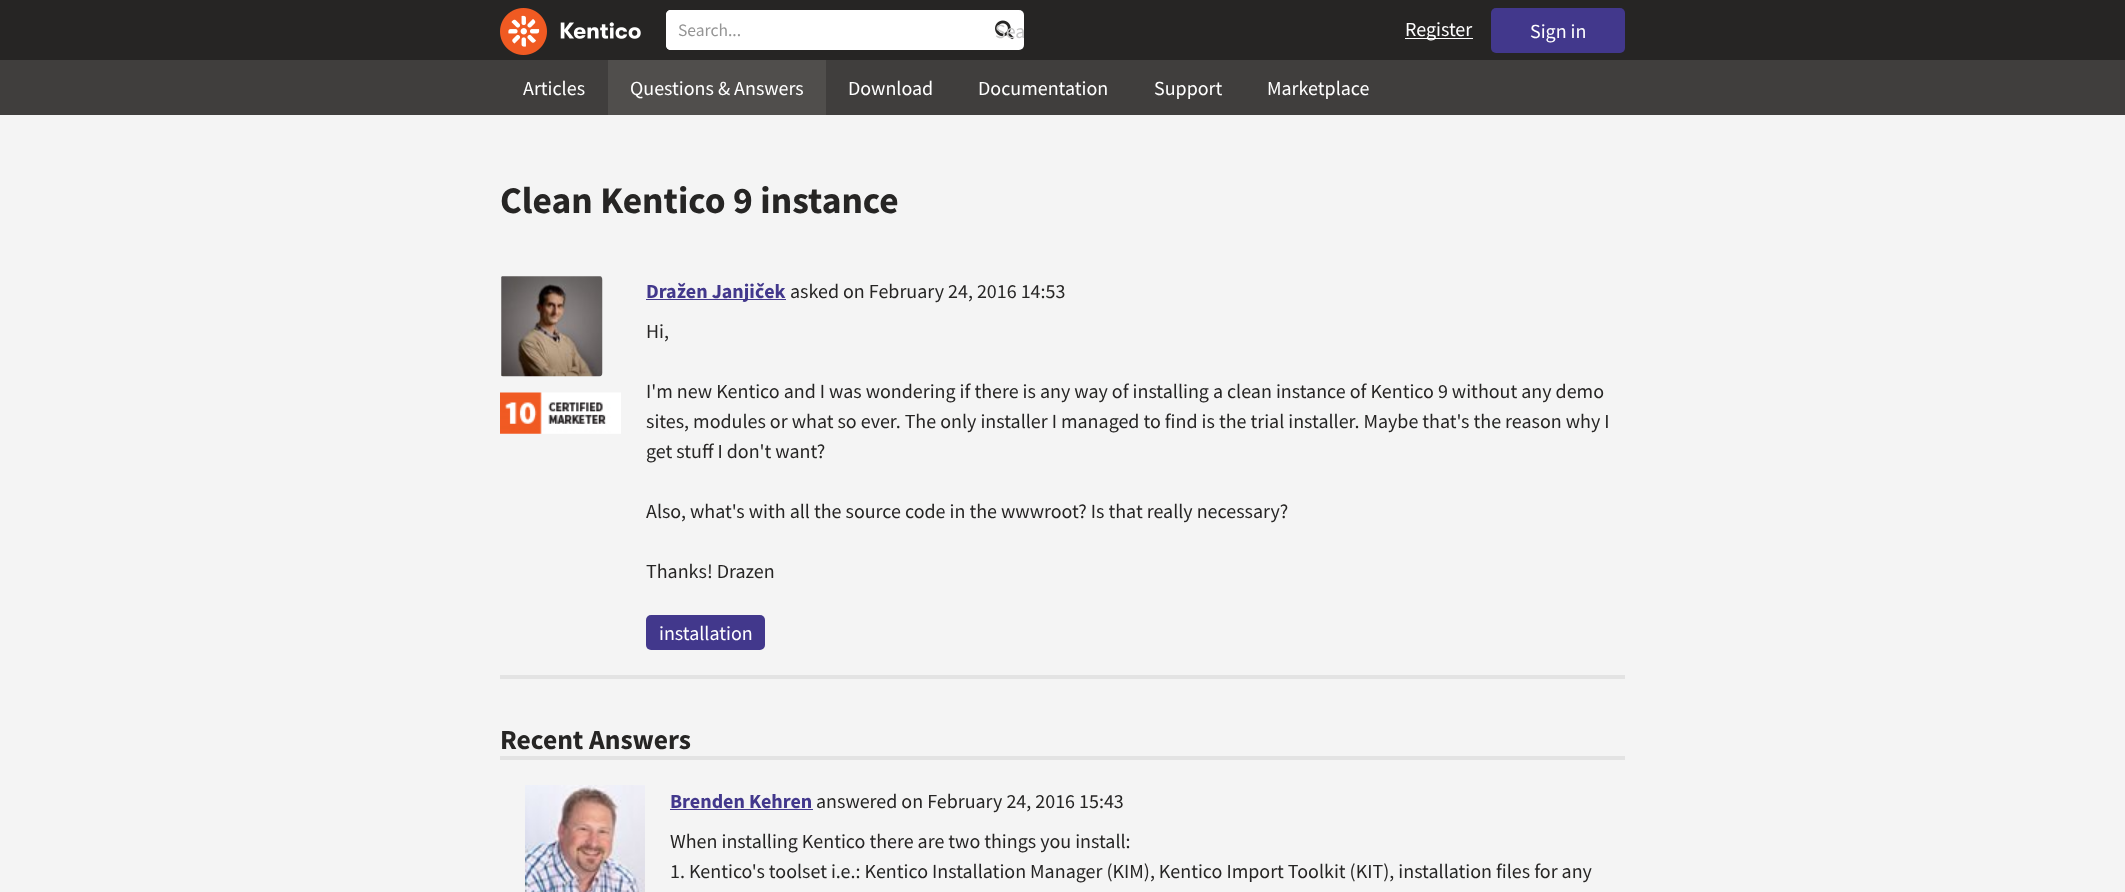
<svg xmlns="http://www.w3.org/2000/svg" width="2125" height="892">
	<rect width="100%" height="100%" fill="#F4F4F4" />
	<rect x="0" y="0" width="2125" height="60" fill="#262524" />
	<image x="500" y="8" width="141" height="47" href="assets/img1.png" />
	<rect x="666" y="10" width="358" height="40" rx="5" fill="#FFFFFF" />
	<path d="M671 10H988V50H671C668 50 666 48 666 45V15C666 12 668 10 671 10Z" fill="#FFFFFF" />
	<text x="678" y="36" font-family="Source Sans Pro" font-size="17.5" fill="#959595">Search...</text>
	<image x="995" y="20" width="19" height="20" href="assets/img2.png" />
	<text x="995" y="38" font-family="Source Sans Pro" font-size="20" fill="#C7C7C7">Sea</text>
	<rect x="1405" y="38" width="68" height="1" fill="#FFFFFF" />
	<text x="1405" y="36" font-family="Source Sans Pro" font-size="20" fill="#FFFFFF">Register</text>
	<rect x="1491" y="8" width="134" height="45" rx="5" fill="#42388C" />
	<text x="1530" y="38" font-family="Source Sans Pro" font-size="20" fill="#FFFFFF">Sign in</text>
	<rect x="0" y="60" width="2125" height="55" fill="#403E3D" />
	<text x="523" y="95" font-family="Source Sans Pro" font-size="20" fill="#FFFFFF">Articles</text>
	<rect x="608" y="60" width="218" height="55" fill="#504E4C" />
	<g font-family="Source Sans Pro" font-size="20" fill="#FFFFFF">
		<text x="630" y="95">Questions &amp; Answers</text>
		<text x="848" y="95">Download</text>
		<text x="978" y="95">Documentation</text>
		<text x="1154" y="95">Support</text>
		<text x="1267" y="95">Marketplace</text>
	</g>
	<text x="500" y="213" font-family="Source Sans Pro" font-size="37.5" font-weight="700" fill="#262524">Clean Kentico 9 instance</text>
	<rect x="500" y="675" width="1125" height="4" fill="#E3E3E3" />
	<image x="501" y="276" width="102" height="101" href="assets/img3.png" />
	<image x="500" y="392" width="121" height="42" href="assets/img4.png" />
	<rect x="646" y="299" width="140" height="1" fill="#42388C" />
	<text x="646" y="298" font-family="Source Sans Pro" font-size="20" font-weight="700" fill="#42388C">Dražen Janjiček</text>
	<g font-family="Source Sans Pro" font-size="20" fill="#262524">
		<text x="790" y="298">asked on February 24, 2016 14:53</text>
		<text x="646" y="338">Hi,</text>
		<text x="646" y="398">I'm new Kentico and I was wondering if there is any way of installing a clean instance of Kentico 9 without any demo</text>
		<text x="646" y="428">sites, modules or what so ever. The only installer I managed to find is the trial installer. Maybe that's the reason why I</text>
		<text x="646" y="458">get stuff I don't want?</text>
		<text x="646" y="518">Also, what's with all the source code in the wwwroot? Is that really necessary?</text>
		<text x="646" y="578">Thanks! Drazen</text>
	</g>
	<rect x="646" y="615" width="119" height="35" rx="5" fill="#42388C" />
	<text x="659" y="640" font-family="Source Sans Pro" font-size="20" fill="#FFFFFF">installation</text>
	<text x="500" y="749" font-family="Source Sans Pro" font-size="27.5" font-weight="700" fill="#262524">Recent Answers</text>
	<rect x="500" y="756" width="1125" height="4" fill="#E3E3E3" />
	<image x="525" y="785" width="120" height="107" href="assets/img5.png" />
	<text x="670" y="808" font-family="Source Sans Pro" font-size="20" font-weight="700" fill="#42388C">Brenden Kehren</text>
	<rect x="670" y="809" width="143" height="1" fill="#42388C" />
	<g font-family="Source Sans Pro" font-size="20" fill="#262524">
		<text x="816" y="808">answered on February 24, 2016 15:43</text>
		<text x="670" y="848">When installing Kentico there are two things you install:</text>
		<text x="670" y="878">1. Kentico's toolset i.e.: Kentico Installation Manager (KIM), Kentico Import Toolkit (KIT), installation files for any</text>
	</g>
</svg>
